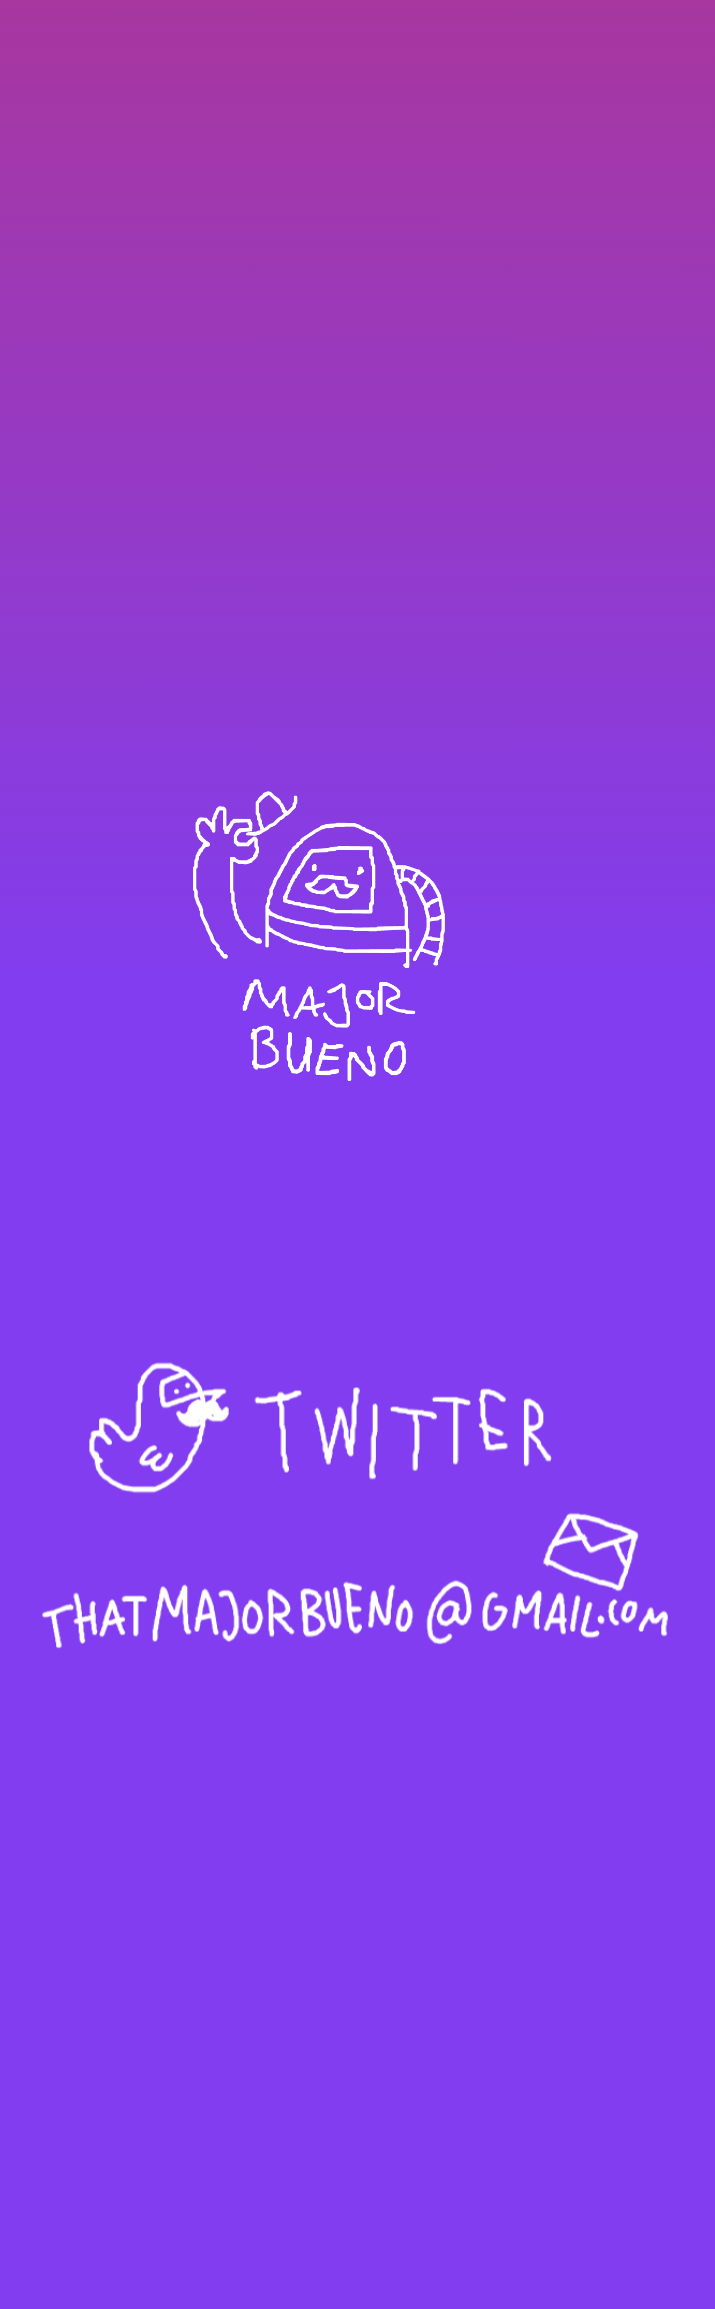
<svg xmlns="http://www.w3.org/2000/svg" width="715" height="2309">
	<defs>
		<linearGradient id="g1" gradientUnits="userSpaceOnUse" x1="357" y1="0" x2="358" y2="1000"><stop offset="0" stop-color="#A8379F" /><stop offset="1" stop-color="#813DEF" /></linearGradient>
	</defs>
	<rect width="100%" height="100%" fill="#813DEF" />
	<rect x="0" y="0" width="715" height="969" fill="url(#g1)" />
	<image x="193" y="791" width="252" height="290" href="assets/img1.png" />
	<image x="89" y="1362" width="463" height="132" href="assets/img2.png" />
	<image x="42" y="1512" width="626" height="137" href="assets/img3.png" />
</svg>
